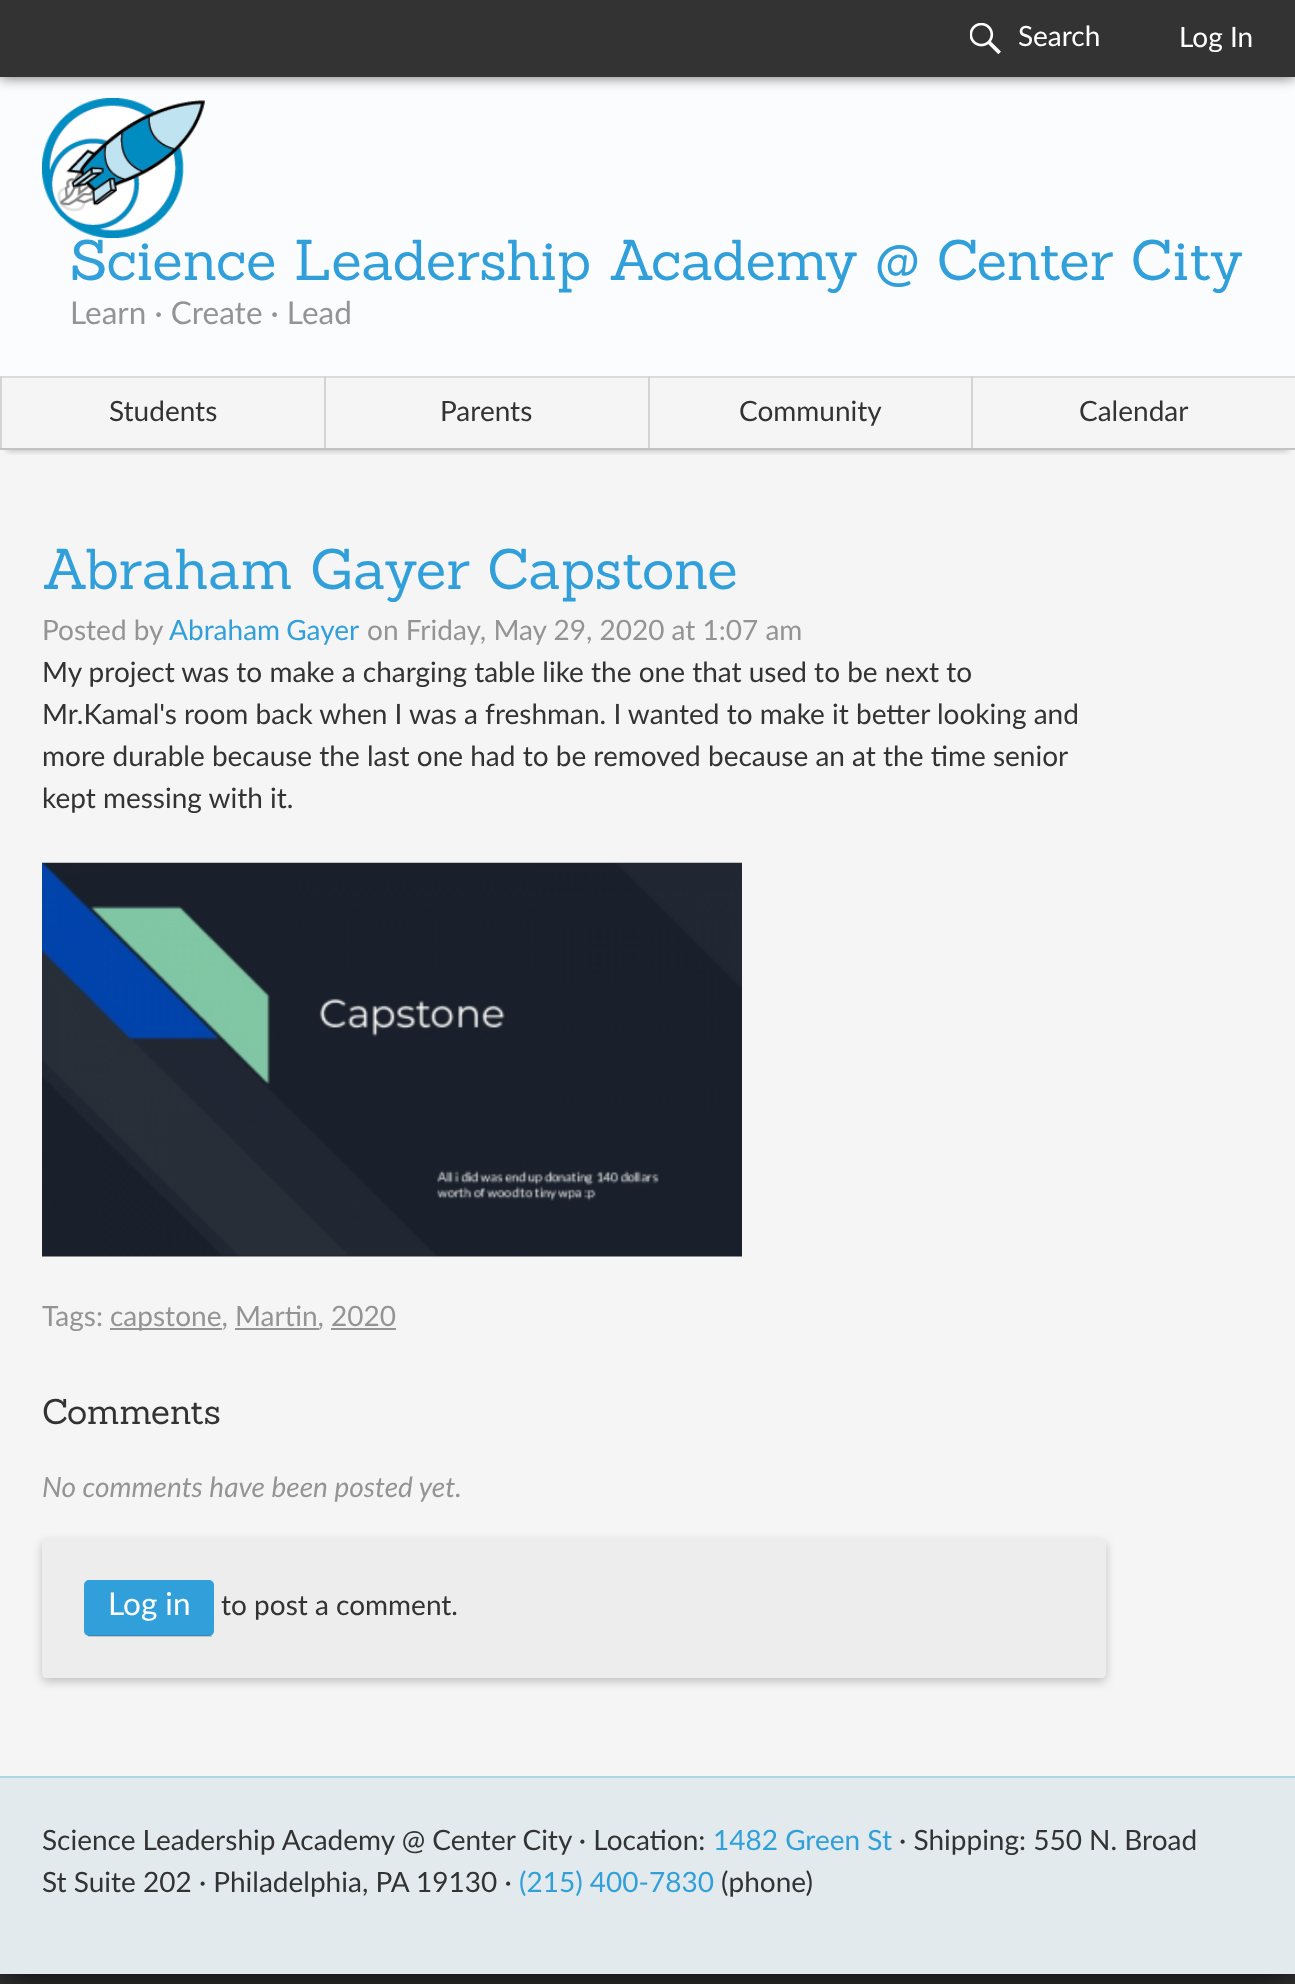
<svg xmlns="http://www.w3.org/2000/svg" width="1295" height="1984">
	<defs>
		<clipPath id="clip1"><rect x="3" y="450" width="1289" height="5" /></clipPath>
		<clipPath id="clip2"><path d="M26 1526H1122V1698H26ZM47 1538H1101C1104 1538 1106 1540 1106 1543V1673C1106 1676 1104 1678 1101 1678H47C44 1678 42 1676 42 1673V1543C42 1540 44 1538 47 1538Z" clip-rule="evenodd" /></clipPath>
	</defs>
	<rect width="100%" height="100%" fill="#333333" />
	<rect x="0" y="77" width="1295" height="1897" fill="#000000" filter="blur(21px)" />
	<rect x="0" y="450" width="1295" height="1326" fill="#F5F5F5" />
	<rect x="0" y="77" width="1295" height="299" fill="#FBFCFD" />
	<image x="42" y="98" width="163" height="140" href="assets/img2.png" />
	<rect x="0" y="0" width="1295" height="77" fill="#000000" fill-opacity="0.6" filter="blur(7px)" />
	<rect x="0" y="0" width="1295" height="77" fill="#333333" />
	<image x="970" y="23" width="31" height="31" href="assets/img1.png" />
	<g font-family="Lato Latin" font-size="28" fill="#FFFFFF">
		<text x="1018" y="46">Search</text>
		<text x="1179" y="47">Log In</text>
	</g>
	<rect x="2" y="378" width="1293" height="70" fill="#E5EBEE" />
	<text x="70" y="280" font-family="Sanchez" font-size="56" fill="#31A0DA">Science Leadership Academy @ Center City</text>
	<text x="70" y="324" font-family="Lato Latin" font-size="31.5" fill="#949494">Learn · Create · Lead</text>
	<g clip-path="url(#clip1)">
		<rect x="7" y="390" width="1281" height="60" fill="#000000" fill-opacity="0.3" filter="blur(3.5px)" />
	</g>
	<rect x="2" y="378" width="1293" height="70" fill="#F5F5F5" fill-opacity="0.97" />
	<rect x="0" y="376" width="1295" height="2" fill="#DCDCDC" />
	<rect x="0" y="448" width="1295" height="2" fill="#C2C3C4" />
	<rect x="0" y="376" width="2" height="72" fill="#D4D4D4" />
	<text x="109" y="421" font-family="Lato Latin" font-size="28" fill="#333333">Students</text>
	<rect x="324" y="376" width="2" height="72" fill="#D4D4D4" />
	<text x="440" y="421" font-family="Lato Latin" font-size="28" fill="#333333">Parents</text>
	<rect x="648" y="376" width="2" height="72" fill="#D4D4D4" />
	<text x="739" y="421" font-family="Lato Latin" font-size="28" fill="#333333">Community</text>
	<rect x="971" y="376" width="2" height="72" fill="#D4D4D4" />
	<text x="1079" y="421" font-family="Lato Latin" font-size="28" fill="#333333">Calendar</text>
	<text x="42" y="589" font-family="Sanchez" font-size="56" fill="#31A0DA">Abraham Gayer Capstone</text>
	<text x="42" y="640" font-family="Lato Latin" font-size="28" fill="#949494">Posted by</text>
	<text x="169" y="640" word-spacing="-1" font-family="Lato Latin" font-size="28" fill="#31A0DA">Abraham Gayer</text>
	<text x="367" y="640" font-family="Lato Latin" font-size="28" fill="#949494">on Friday, May 29, 2020 at 1:07 am</text>
	<g font-family="Lato Latin" font-size="28" fill="#333333">
		<text x="42" y="682">My project was to make a charging table like the one that used to be next to</text>
		<text x="42" y="724">Mr.Kamal's room back when I was a freshman. I wanted to make it better looking and</text>
		<text x="42" y="766">more durable because the last one had to be removed because an at the time senior</text>
		<text x="42" y="808">kept messing with it.</text>
	</g>
	<image x="42" y="862" width="700" height="395" href="assets/img3.png" />
	<text x="42" y="1326" font-family="Lato Latin" font-size="28" fill="#949494">Tags:</text>
	<rect x="110" y="1328" width="112" height="2" fill="#949494" />
	<text x="110" y="1326" font-family="Lato Latin" font-size="28" fill="#949494">capstone, Martin, 2020</text>
	<rect x="235" y="1328" width="84" height="2" fill="#949494" />
	<rect x="331" y="1328" width="65" height="2" fill="#949494" />
	<text x="42" y="1424" font-family="Sanchez" font-size="35" fill="#333333">Comments</text>
	<text x="42" y="1497" font-family="Lato Latin" font-size="28" font-style="italic" fill="#949494">No comments have been posted yet.</text>
	<g clip-path="url(#clip2)">
		<rect x="42" y="1542" width="1064" height="140" rx="5" fill="#000000" fill-opacity="0.2" filter="blur(5px)" />
	</g>
	<rect x="42" y="1538" width="1064" height="140" rx="5" fill="#949494" fill-opacity="0.08" />
	<rect x="84" y="1580" width="130" height="56" rx="5" fill="#31A0DA" />
	<rect x="88" y="1635" width="124" height="2" fill="#333333" fill-opacity="0.2" />
	<text x="108" y="1615" font-family="Lato Latin" font-size="31.5" fill="#FFFFFF">Log in</text>
	<text x="221" y="1615" font-family="Lato Latin" font-size="28" fill="#333333">to post a comment.</text>
	<rect x="0" y="1778" width="1295" height="196" fill="#E3EAED" />
	<rect x="0" y="1776" width="1295" height="2" fill="#AED4E7" />
	<text x="42" y="1850" font-family="Lato Latin" font-size="28" fill="#333333">Science Leadership Academy @ Center City · Location:</text>
	<text x="713" y="1850" font-family="Lato Latin" font-size="28" fill="#31A0DA">1482 Green St</text>
	<g font-family="Lato Latin" font-size="28" fill="#333333">
		<text x="899" y="1850">· Shipping: 550 N. Broad</text>
		<text x="42" y="1892">St Suite 202 · Philadelphia, PA 19130 ·</text>
	</g>
	<text x="519" y="1892" font-family="Lato Latin" font-size="28" fill="#31A0DA">(215) 400-7830</text>
	<text x="721" y="1892" font-family="Lato Latin" font-size="28" fill="#333333">(phone)</text>
</svg>
